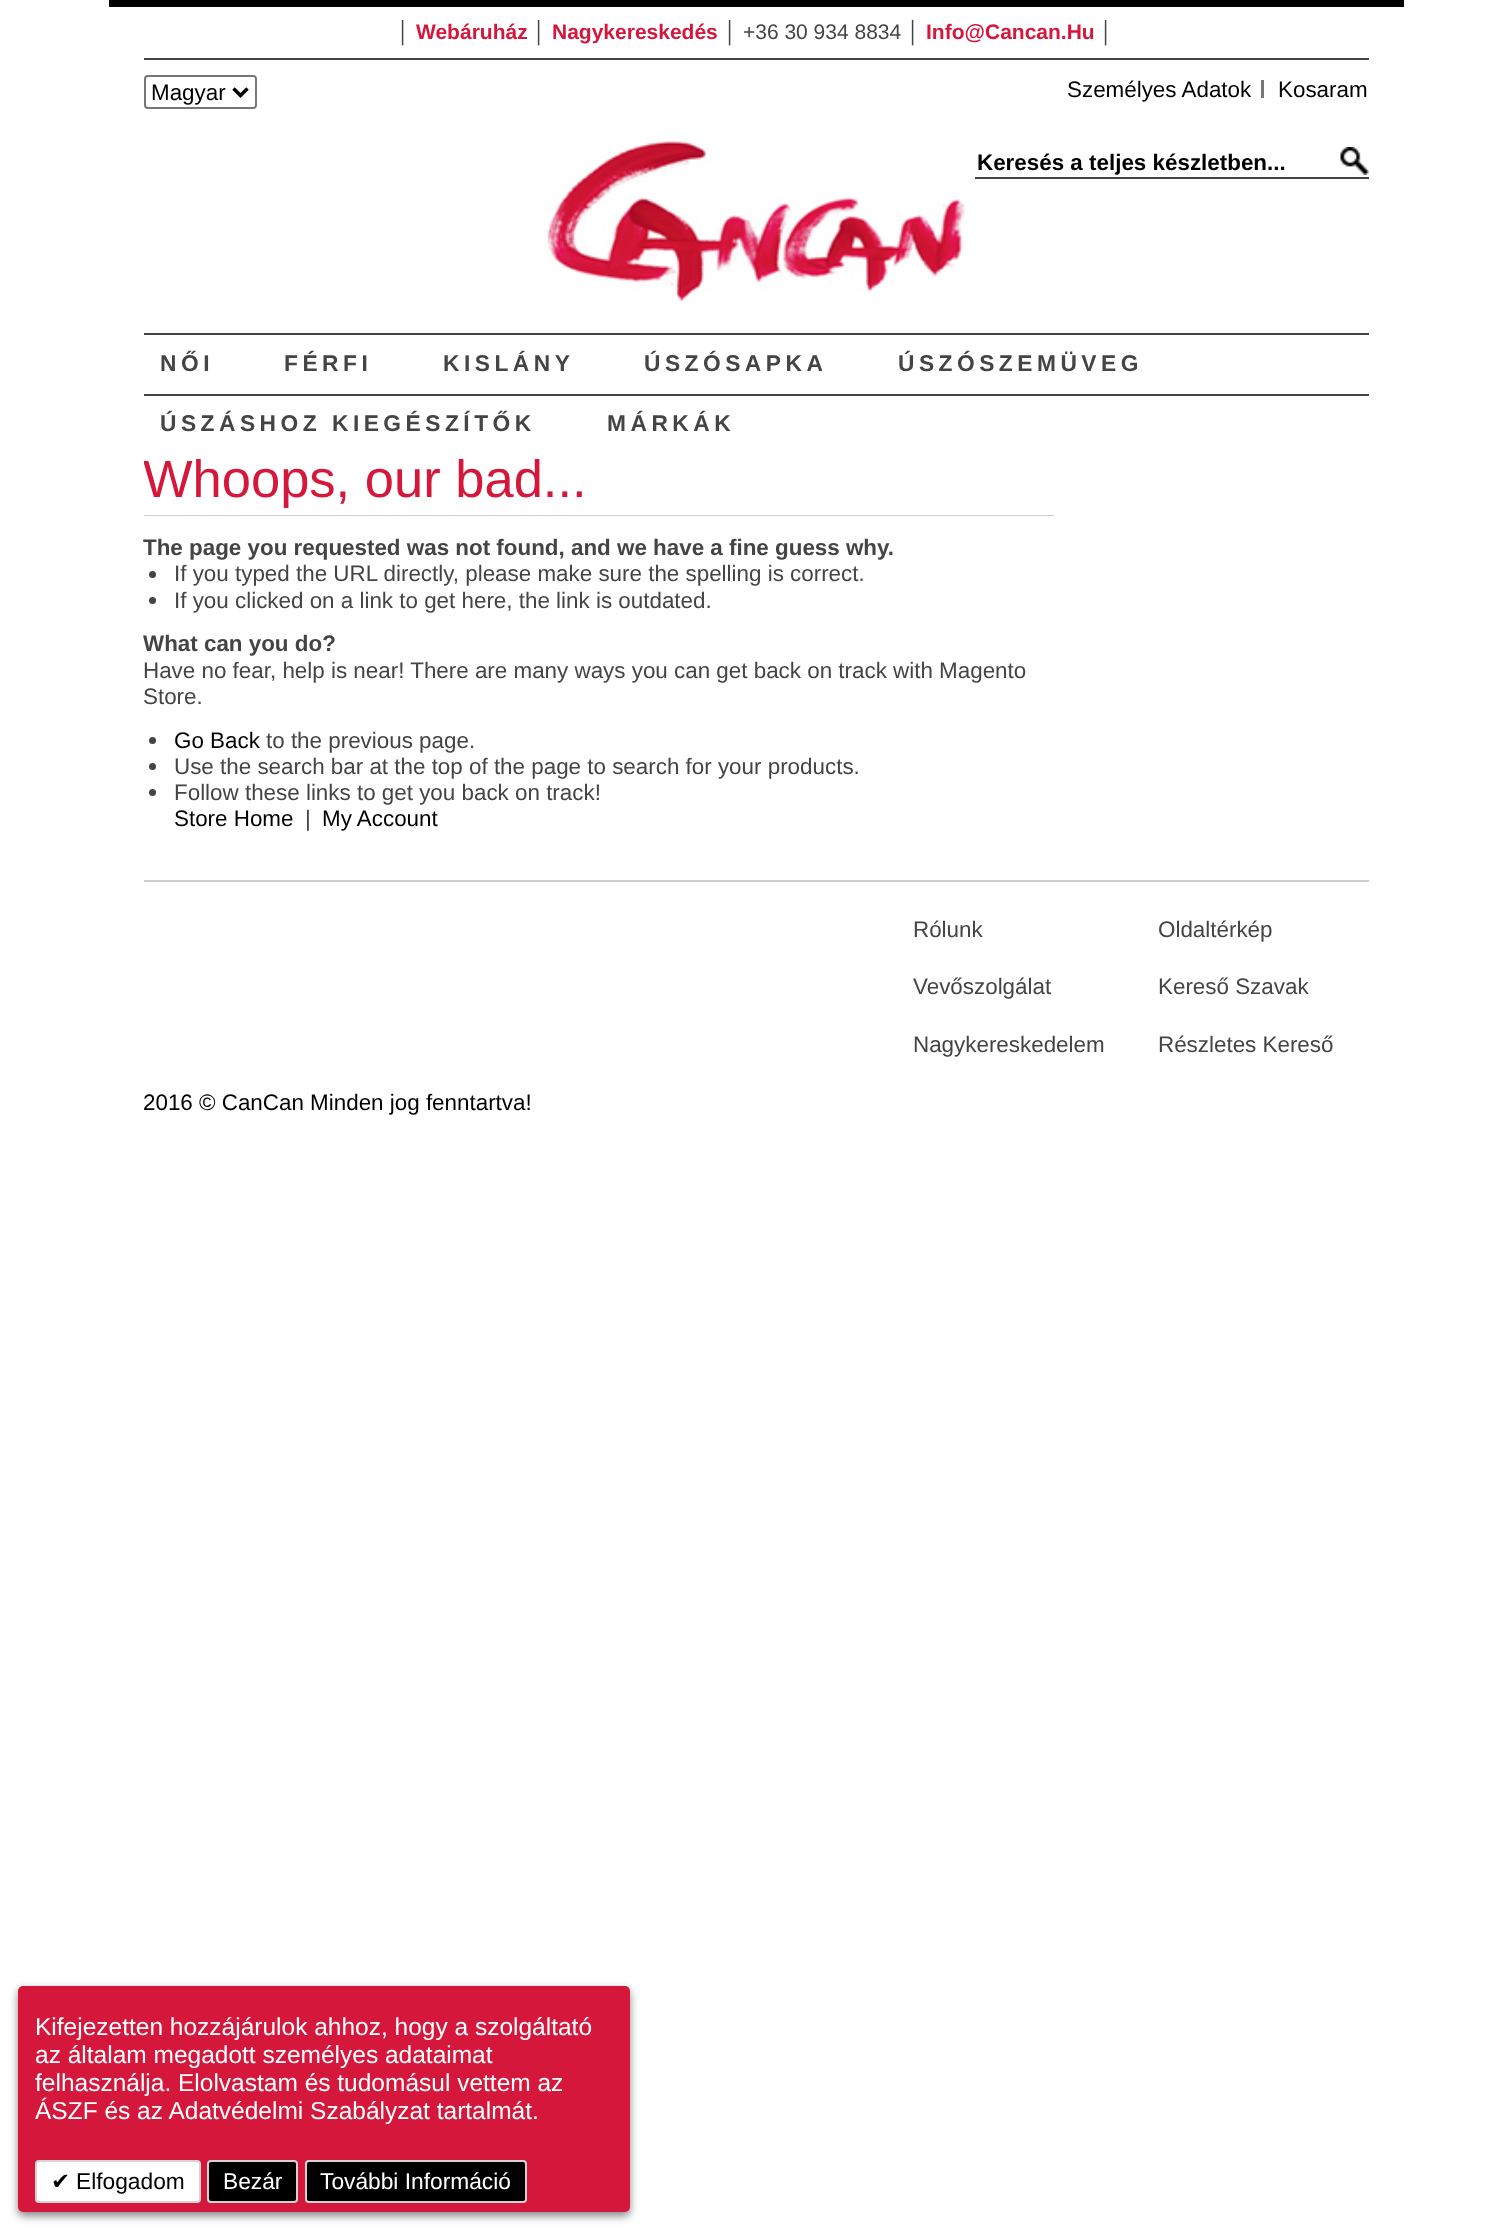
<svg xmlns="http://www.w3.org/2000/svg" width="1510" height="2228">
	<defs>
		<clipPath id="clip1"><rect x="144" y="445" width="910" height="71" /></clipPath>
	</defs>
	<rect width="100%" height="100%" fill="#FFFFFF" />
	<rect x="109" y="0" width="1295" height="7" fill="#000000" />
	<rect x="144" y="58" width="1225" height="2" fill="#444444" />
	<text x="397" y="39" font-family="Liberation Sans" font-size="21" fill="#444444">│</text>
	<text x="416" y="39" font-family="Liberation Sans" font-size="21" font-weight="700" fill="#D5173B">Webáruház</text>
	<text x="533" y="39" font-family="Liberation Sans" font-size="21" fill="#444444">│</text>
	<text x="552" y="39" font-family="Liberation Sans" font-size="21" font-weight="700" fill="#D5173B">Nagykereskedés</text>
	<text x="724" y="39" font-family="Liberation Sans" font-size="21" fill="#444444">│ +36 30 934 8834 │</text>
	<text x="926" y="39" font-family="Liberation Sans" font-size="21" font-weight="700" fill="#D5173B">Info@Cancan.Hu</text>
	<text x="1100" y="39" font-family="Liberation Sans" font-size="21" fill="#444444">│</text>
	<rect x="145" y="76" width="111" height="32" rx="3" fill="none" stroke="#767676" stroke-width="2" />
	<path d="M233.5 88.5L240.5 95.5L247.5 88.5" fill="none" stroke="#000000" stroke-width="3.5" />
	<g font-family="Liberation Sans" font-size="22.4" fill="#000000">
		<text x="151" y="100">Magyar</text>
		<text x="1067" y="97">Személyes Adatok</text>
	</g>
	<rect x="1261" y="80" width="3" height="18" fill="#777777" />
	<text x="1278" y="97" font-family="Liberation Sans" font-size="22.4" fill="#000000">Kosaram</text>
	<image x="546" y="141" width="420" height="160" href="assets/img1.png" />
	<rect x="975" y="177" width="394" height="2" fill="#444444" />
	<text x="977" y="170" font-family="Liberation Sans" font-size="22.4" font-weight="700" fill="#000000">Keresés a teljes készletben...</text>
	<image x="1340" y="147" width="29" height="28" href="assets/img2.png" />
	<rect x="144" y="333" width="1225" height="2" fill="#444444" />
	<rect x="144" y="394" width="1225" height="2" fill="#444444" />
	<g font-family="Liberation Sans" font-size="22.75" font-weight="700" letter-spacing="4.5" fill="#444444">
		<text x="160" y="371">NŐI</text>
		<text x="284" y="371">FÉRFI</text>
		<text x="443" y="371">KISLÁNY</text>
		<text x="644" y="371">ÚSZÓSAPKA</text>
		<text x="898" y="371">ÚSZÓSZEMÜVEG</text>
		<text x="160" y="431">ÚSZÁSHOZ KIEGÉSZÍTŐK</text>
		<text x="607" y="431">MÁRKÁK</text>
	</g>
	<rect x="144" y="515" width="910" height="1" fill="#CCCCCC" />
	<g clip-path="url(#clip1)">
		<text x="143" y="497" font-family="Liberation Sans" font-size="52.5" fill="#D5173B">Whoops, our bad...</text>
	</g>
	<text x="143" y="555" font-family="Liberation Sans" font-size="22.4" font-weight="700" fill="#444444">The page you requested was not found, and we have a fine guess why.</text>
	<circle cx="152.5" cy="574.5" r="3.5" fill="#444444" />
	<text x="174" y="581" font-family="Liberation Sans" font-size="22.4" fill="#444444">If you typed the URL directly, please make sure the spelling is correct.</text>
	<circle cx="152.5" cy="600.5" r="3.5" fill="#444444" />
	<text x="174" y="608" font-family="Liberation Sans" font-size="22.4" fill="#444444">If you clicked on a link to get here, the link is outdated.</text>
	<text x="143" y="651" font-family="Liberation Sans" font-size="22.4" font-weight="700" fill="#444444">What can you do?</text>
	<g font-family="Liberation Sans" font-size="22.4" fill="#444444">
		<text x="143" y="678">Have no fear, help is near! There are many ways you can get back on track with Magento</text>
		<text x="143" y="704">Store.</text>
	</g>
	<circle cx="152.5" cy="740.5" r="3.5" fill="#444444" />
	<text x="174" y="748" font-family="Liberation Sans" font-size="22.4" fill="#000000">Go Back</text>
	<text x="266" y="748" font-family="Liberation Sans" font-size="22.4" fill="#444444">to the previous page.</text>
	<circle cx="152.5" cy="766.5" r="3.5" fill="#444444" />
	<text x="174" y="774" font-family="Liberation Sans" font-size="22.4" fill="#444444">Use the search bar at the top of the page to search for your products.</text>
	<circle cx="152.5" cy="792.5" r="3.5" fill="#444444" />
	<text x="174" y="800" font-family="Liberation Sans" font-size="22.4" fill="#444444">Follow these links to get you back on track!</text>
	<text x="174" y="826" font-family="Liberation Sans" font-size="22.4" fill="#000000">Store Home</text>
	<text x="305" y="826" font-family="Liberation Sans" font-size="22.4" fill="#444444">|</text>
	<text x="322" y="826" font-family="Liberation Sans" font-size="22.4" fill="#000000">My Account</text>
	<rect x="144" y="880" width="1225" height="2" fill="#CCCCCC" />
	<g font-family="Liberation Sans" font-size="22.4" fill="#444444">
		<text x="913" y="937">Rólunk</text>
		<text x="913" y="994">Vevőszolgálat</text>
		<text x="913" y="1052">Nagykereskedelem</text>
		<text x="1158" y="937">Oldaltérkép</text>
		<text x="1158" y="994">Kereső Szavak</text>
		<text x="1158" y="1052">Részletes Kereső</text>
	</g>
	<text x="143" y="1110" font-family="Liberation Sans" font-size="22.4" fill="#000000">2016 © CanCan Minden jog fenntartva!</text>
	<rect x="18" y="1990" width="612" height="226" rx="5" fill="#000000" fill-opacity="0.47" filter="blur(4.5px)" />
	<rect x="18" y="1986" width="612" height="226" rx="5" fill="#D5173B" />
	<g font-family="Liberation Sans" font-size="24.5" fill="#FFFFFF">
		<text x="35" y="2035">Kifejezetten hozzájárulok ahhoz, hogy a szolgáltató</text>
		<text x="35" y="2063">az általam megadott személyes adataimat</text>
		<text x="35" y="2091">felhasználja. Elolvastam és tudomásul vettem az</text>
		<text x="35" y="2119">ÁSZF és az Adatvédelmi Szabályzat tartalmát.</text>
	</g>
	<rect x="36" y="2161" width="164" height="41" rx="3" fill="#FFFFFF" stroke="#D4D4D4" stroke-width="2" />
	<text x="51" y="2189" font-family="DejaVu Sans" font-size="22.75" fill="#000000">✔</text>
	<text x="76" y="2189" font-family="Liberation Sans" font-size="22.75" fill="#000000">Elfogadom</text>
	<rect x="208" y="2161" width="89" height="41" rx="3" fill="#000000" stroke="#D4D4D4" stroke-width="2" />
	<text x="223" y="2189" font-family="Liberation Sans" font-size="22.75" fill="#FFFFFF">Bezár</text>
	<rect x="306" y="2161" width="220" height="41" rx="3" fill="#000000" stroke="#D4D4D4" stroke-width="2" />
	<text x="320" y="2189" font-family="Liberation Sans" font-size="22.75" fill="#FFFFFF">További Információ</text>
</svg>
